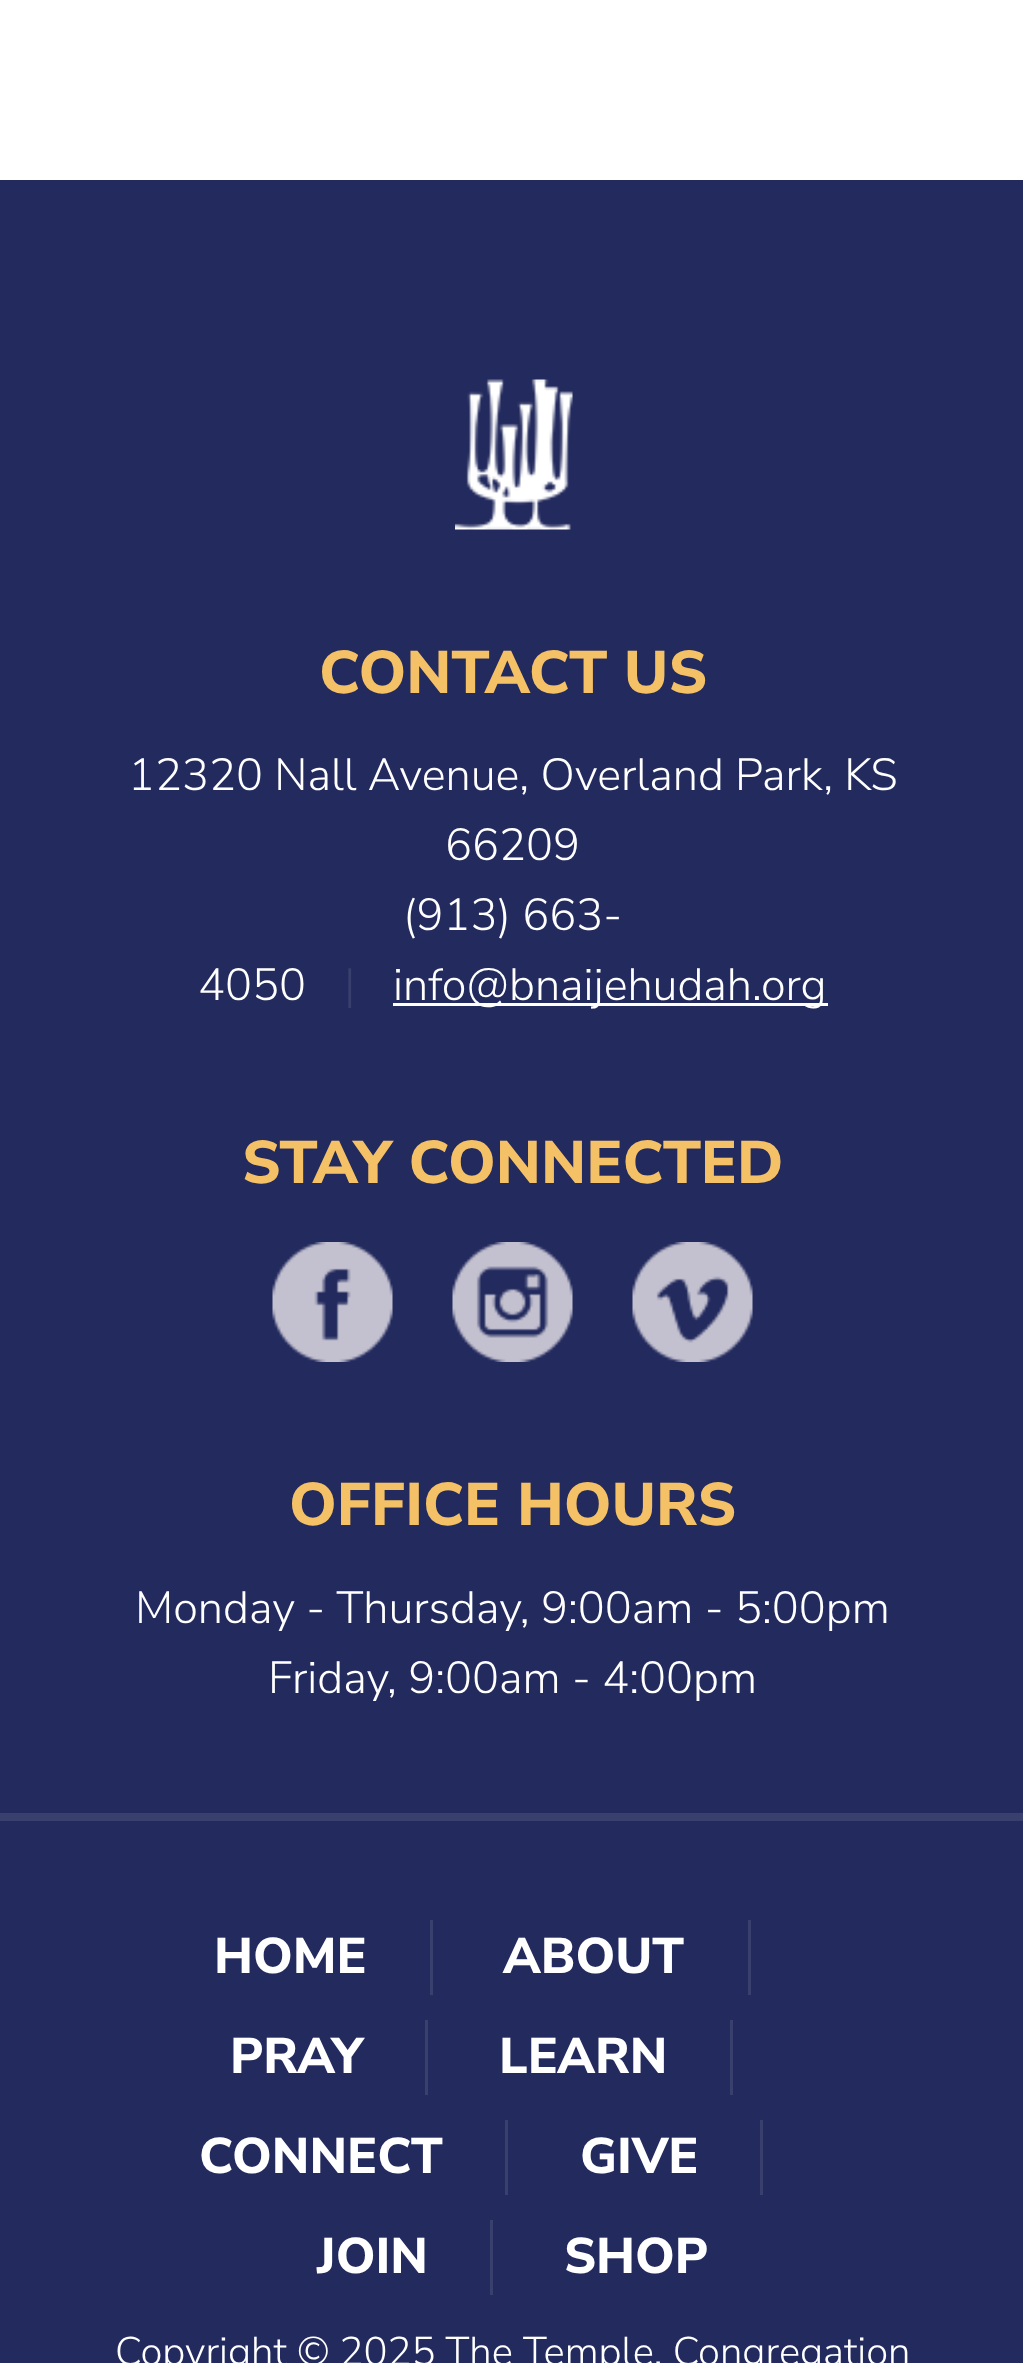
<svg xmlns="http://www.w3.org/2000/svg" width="1023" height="2363">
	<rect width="100%" height="100%" fill="#FFFFFF" />
	<rect x="0" y="180" width="1023" height="2183" fill="#232B5E" />
	<image x="455" y="379" width="118" height="151" href="assets/img1.png" />
	<text x="319" y="693" font-family="Nunito Sans" font-size="60" font-weight="800" fill="#F5C166">CONTACT US</text>
	<g font-family="Nunito Sans" font-size="45" font-weight="300" fill="#FFFFFF">
		<text x="128" y="790">12320 Nall Avenue, Overland Park, KS</text>
		<text x="445" y="860">66209</text>
		<text x="403" y="930">(913) 663-</text>
		<text x="198" y="1000">4050</text>
	</g>
	<text x="344" y="1000" font-family="Nunito Sans" font-size="45" font-weight="300" fill="#39406E">|</text>
	<rect x="393" y="1003" width="435" height="3" fill="#FFFFFF" />
	<text x="393" y="1000" font-family="Nunito Sans" font-size="45" font-weight="300" fill="#FFFFFF">info@bnaijehudah.org</text>
	<text x="242" y="1183" font-family="Nunito Sans" font-size="60" font-weight="800" fill="#F5C166">STAY CONNECTED</text>
	<image x="272" y="1242" width="121" height="120" href="assets/img2.png" />
	<image x="452" y="1242" width="121" height="120" href="assets/img3.png" />
	<image x="632" y="1242" width="121" height="120" href="assets/img4.png" />
	<text x="289" y="1525" font-family="Nunito Sans" font-size="60" font-weight="800" fill="#F5C166">OFFICE HOURS</text>
	<g font-family="Nunito Sans" font-size="45" font-weight="300" fill="#FFFFFF">
		<text x="135" y="1623">Monday - Thursday, 9:00am - 5:00pm</text>
		<text x="268" y="1693">Friday, 9:00am - 4:00pm</text>
	</g>
	<rect x="0" y="1813" width="1023" height="8" fill="#39406E" />
	<rect x="430" y="1920" width="3" height="75" fill="#39406E" />
	<text x="214" y="1973" font-family="Nunito Sans" font-size="50" font-weight="800" fill="#FFFFFF">HOME</text>
	<rect x="748" y="1920" width="3" height="75" fill="#39406E" />
	<text x="503" y="1973" font-family="Nunito Sans" font-size="50" font-weight="800" fill="#FFFFFF">ABOUT</text>
	<rect x="425" y="2020" width="3" height="75" fill="#39406E" />
	<text x="230" y="2073" font-family="Nunito Sans" font-size="50" font-weight="800" fill="#FFFFFF">PRAY</text>
	<rect x="730" y="2020" width="3" height="75" fill="#39406E" />
	<text x="499" y="2073" font-family="Nunito Sans" font-size="50" font-weight="800" fill="#FFFFFF">LEARN</text>
	<rect x="505" y="2120" width="3" height="75" fill="#39406E" />
	<text x="199" y="2173" font-family="Nunito Sans" font-size="50" font-weight="800" fill="#FFFFFF">CONNECT</text>
	<rect x="760" y="2120" width="3" height="75" fill="#39406E" />
	<text x="580" y="2173" font-family="Nunito Sans" font-size="50" font-weight="800" fill="#FFFFFF">GIVE</text>
	<rect x="490" y="2220" width="3" height="75" fill="#39406E" />
	<g font-family="Nunito Sans" font-size="50" font-weight="800" fill="#FFFFFF">
		<text x="317" y="2273">JOIN</text>
		<text x="564" y="2273">SHOP</text>
	</g>
	<text x="115" y="2365" font-family="Nunito Sans" font-size="40" font-weight="300" fill="#FFFFFF">Copyright © 2025 The Temple, Congregation</text>
</svg>
